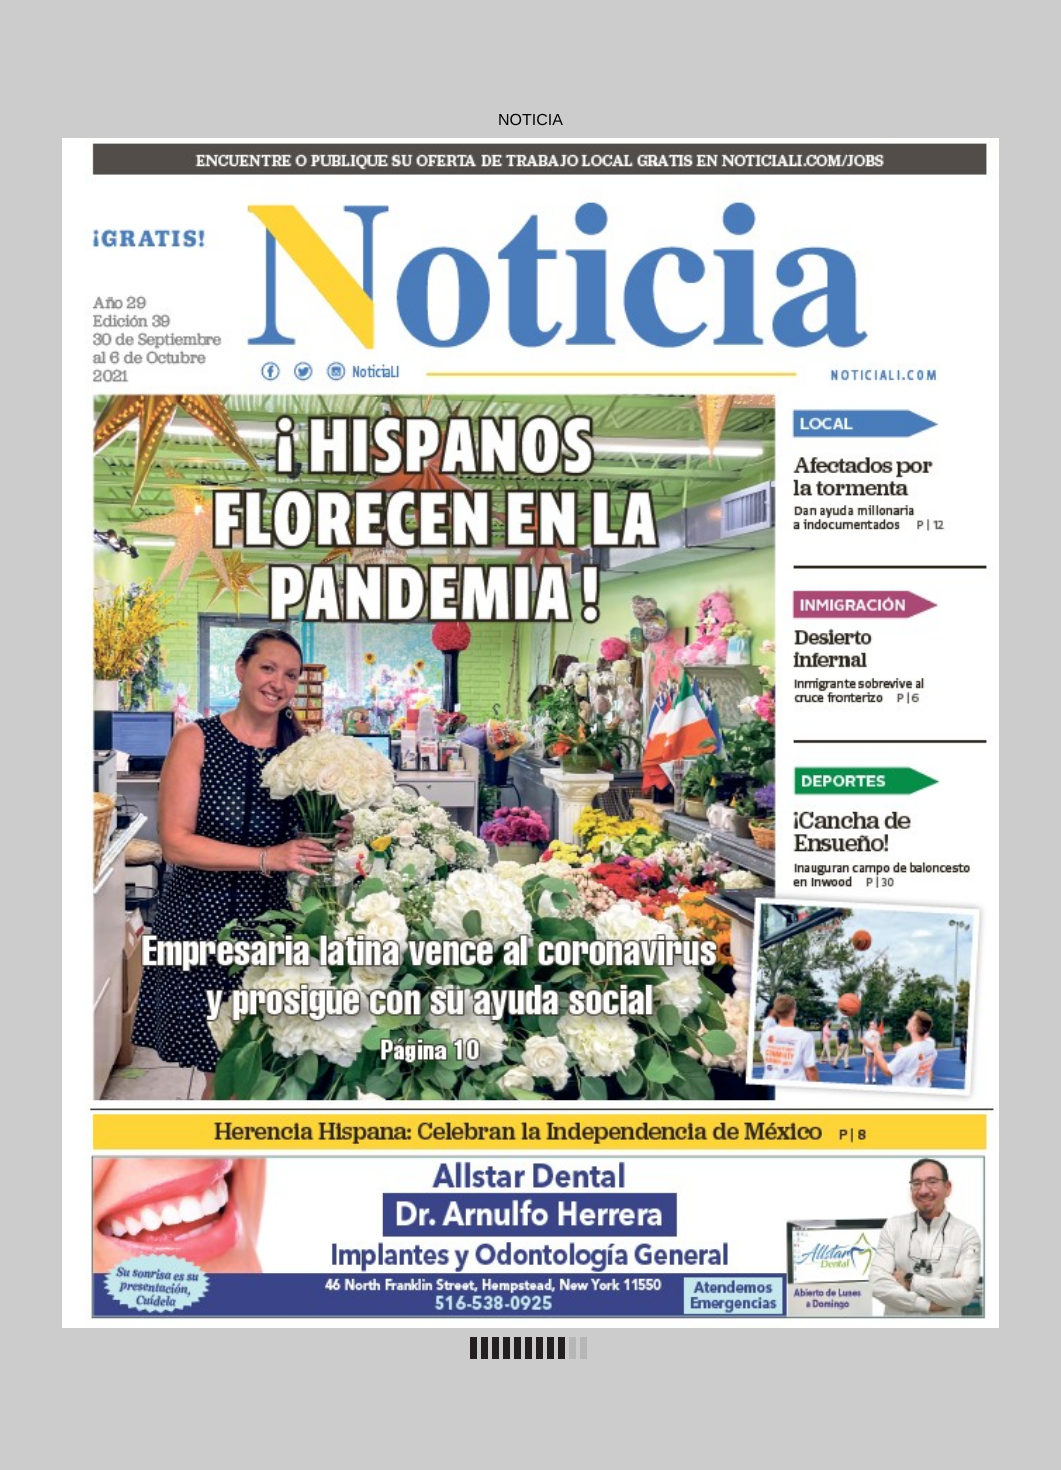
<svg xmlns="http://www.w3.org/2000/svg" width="1061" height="1470">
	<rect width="100%" height="100%" fill="#CCCCCC" />
	<text x="498" y="125" font-family="Liberation Sans" font-size="16" fill="#000000">NOTICIA</text>
	<image x="62" y="138" width="937" height="1190" href="assets/img1.png" />
	<image x="470" y="1337" width="117" height="22" href="assets/img2.png" />
</svg>
